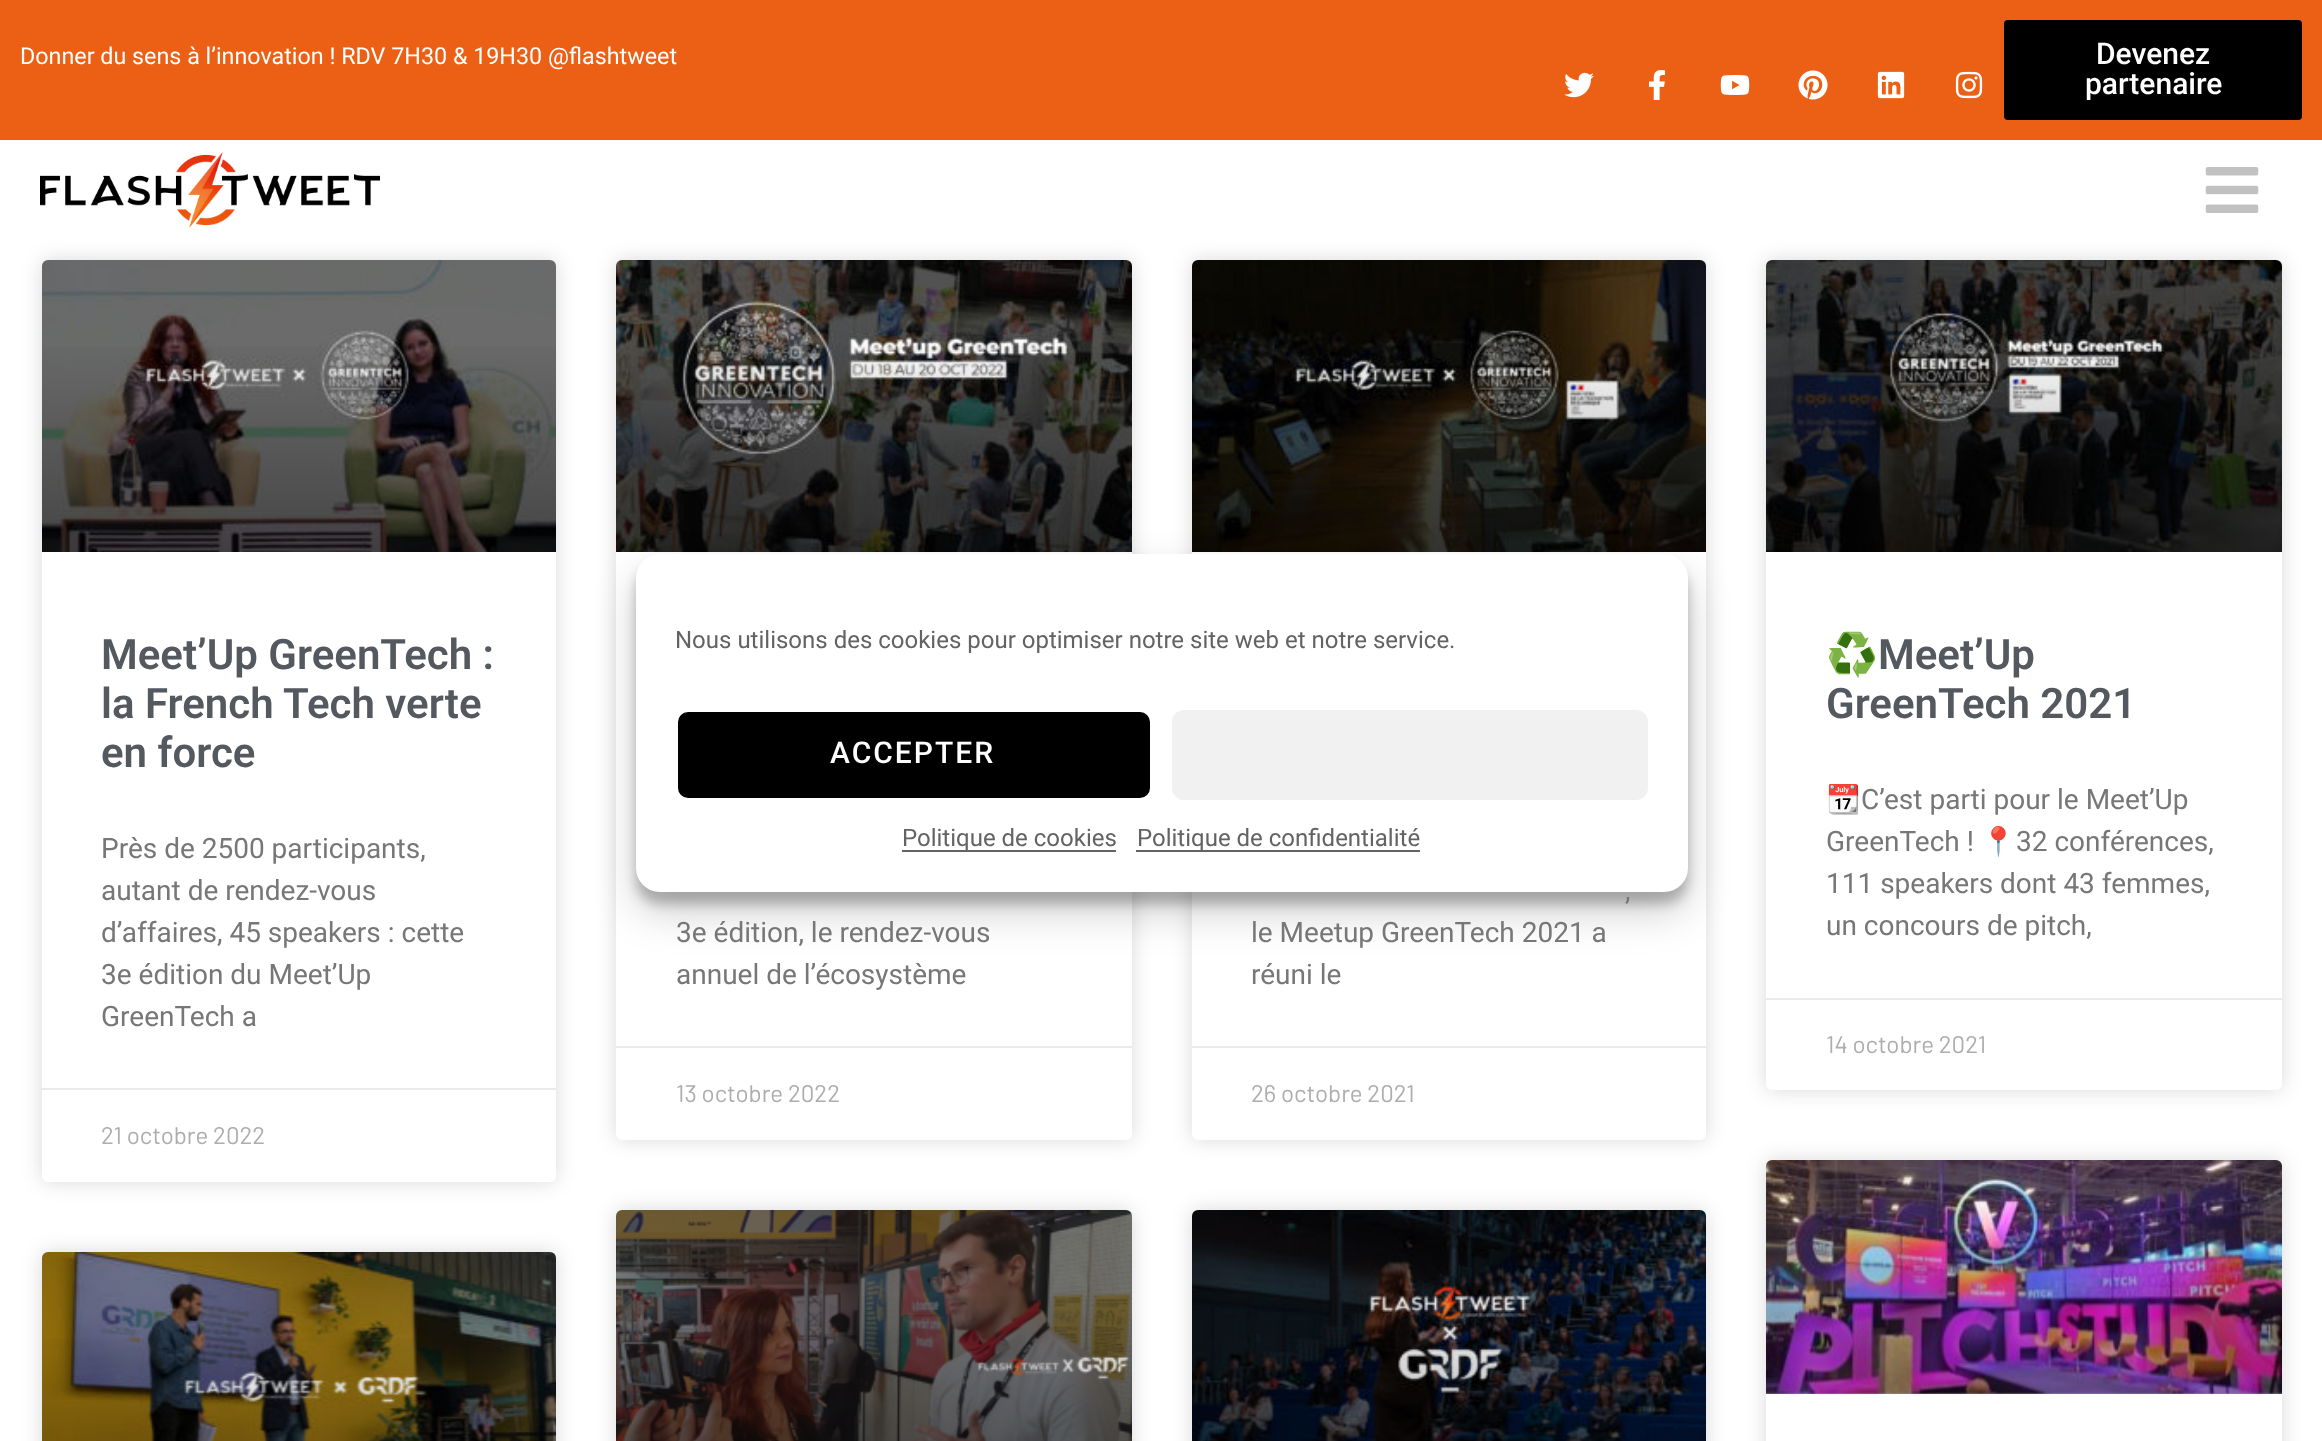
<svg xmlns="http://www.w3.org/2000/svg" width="2322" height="1441">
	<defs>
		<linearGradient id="g1" gradientUnits="userSpaceOnUse" x1="874" y1="552" x2="874" y2="260"><stop offset="0" stop-color="#000000" stop-opacity="0.35" /><stop offset="0.75" stop-color="#000000" stop-opacity="0" /></linearGradient>
		<linearGradient id="g2" gradientUnits="userSpaceOnUse" x1="1449" y1="552" x2="1449" y2="260"><stop offset="0" stop-color="#000000" stop-opacity="0.35" /><stop offset="0.75" stop-color="#000000" stop-opacity="0" /></linearGradient>
		<linearGradient id="g3" gradientUnits="userSpaceOnUse" x1="299" y1="552" x2="299" y2="260"><stop offset="0" stop-color="#000000" stop-opacity="0.35" /><stop offset="0.75" stop-color="#000000" stop-opacity="0" /></linearGradient>
		<linearGradient id="g4" gradientUnits="userSpaceOnUse" x1="2024" y1="552" x2="2024" y2="260"><stop offset="0" stop-color="#000000" stop-opacity="0.35" /><stop offset="0.75" stop-color="#000000" stop-opacity="0" /></linearGradient>
		<linearGradient id="g5" gradientUnits="userSpaceOnUse" x1="299" y1="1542" x2="299" y2="1252"><stop offset="0" stop-color="#000000" stop-opacity="0.35" /><stop offset="0.75" stop-color="#000000" stop-opacity="0" /></linearGradient>
		<linearGradient id="g6" gradientUnits="userSpaceOnUse" x1="874" y1="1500" x2="874" y2="1210"><stop offset="0" stop-color="#000000" stop-opacity="0.35" /><stop offset="0.75" stop-color="#000000" stop-opacity="0" /></linearGradient>
		<linearGradient id="g7" gradientUnits="userSpaceOnUse" x1="1449" y1="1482" x2="1449" y2="1210"><stop offset="0" stop-color="#000000" stop-opacity="0.35" /><stop offset="0.75" stop-color="#000000" stop-opacity="0" /></linearGradient>
		<linearGradient id="g8" gradientUnits="userSpaceOnUse" x1="2024" y1="1394" x2="2024" y2="1160"><stop offset="0" stop-color="#000000" stop-opacity="0.35" /><stop offset="0.75" stop-color="#000000" stop-opacity="0" /></linearGradient>
	</defs>
	<rect width="100%" height="100%" fill="#FFFFFF" />
	<rect x="0" y="0" width="2322" height="140" fill="#EB6015" />
	<text x="20" y="64" font-family="Roboto" font-size="23.3" fill="#FFFFFF">Donner du sens à l’innovation ! RDV 7H30 &amp; 19H30 @flashtweet</text>
	<rect x="2004" y="20" width="298" height="100" rx="4" fill="#000000" />
	<g font-family="Roboto" font-size="30" font-weight="500" fill="#FFFFFF">
		<text x="2096" y="64">Devenez</text>
		<text x="2085" y="94">partenaire</text>
	</g>
	<image x="1564" y="72" width="30" height="26" href="assets/img1.png" />
	<image x="1648" y="70" width="18" height="30" href="assets/img2.png" />
	<image x="1720" y="75" width="30" height="20" href="assets/img3.png" />
	<image x="1798" y="70" width="30" height="30" href="assets/img4.png" />
	<image x="1877" y="71" width="28" height="28" href="assets/img5.png" />
	<image x="1955" y="71" width="28" height="28" href="assets/img6.png" />
	<image x="40" y="152" width="340" height="76" href="assets/img7.png" />
	<image x="2205" y="167" width="54" height="46" href="assets/img8.png" />
	<rect x="616" y="260" width="516" height="880" rx="6" fill="#000000" fill-opacity="0.15" filter="blur(10px)" />
	<rect x="616" y="260" width="516" height="880" rx="6" fill="#FFFFFF" />
	<image x="616" y="260" width="516" height="292" href="assets/img10.png" />
	<rect x="616" y="346" width="516" height="206" fill="url(#g1)" />
	<rect x="1192" y="260" width="514" height="880" rx="6" fill="#000000" fill-opacity="0.15" filter="blur(10px)" />
	<rect x="1192" y="260" width="514" height="880" rx="6" fill="#FFFFFF" />
	<image x="1192" y="260" width="514" height="292" href="assets/img11.png" />
	<rect x="1192" y="349" width="514" height="203" fill="url(#g2)" />
	<rect x="636" y="566" width="1052" height="338" rx="24" fill="#000000" fill-opacity="0.23" filter="blur(6px)" />
	<rect x="636" y="574" width="1052" height="338" rx="24" fill="#000000" fill-opacity="0.19" filter="blur(20px)" />
	<rect x="636" y="554" width="1052" height="338" rx="24" fill="#FFFFFF" />
	<text x="675" y="648" font-family="Roboto" font-size="24" fill="#636363">Nous utilisons des cookies pour optimiser notre site web et notre service.</text>
	<rect x="677" y="711" width="474" height="88" rx="11" fill="#000000" stroke="#FFFFFF" stroke-width="2" />
	<text x="830" y="763" font-family="Roboto" font-size="30" font-weight="500" letter-spacing="2" fill="#FFFFFF">ACCEPTER</text>
	<rect x="1173" y="711" width="474" height="88" rx="11" fill="#F1F1F1" stroke="#F1F1F1" stroke-width="2" />
	<rect x="902" y="850" width="214" height="2" fill="#636363" />
	<text x="902" y="846" font-family="Roboto" font-size="24" fill="#636363">Politique de cookies</text>
	<rect x="1136" y="850" width="284" height="2" fill="#636363" />
	<text x="1137" y="846" font-family="Roboto" font-size="24" fill="#636363">Politique de confidentialité</text>
	<rect x="42" y="260" width="514" height="922" rx="6" fill="#000000" fill-opacity="0.15" filter="blur(10px)" />
	<rect x="42" y="260" width="514" height="922" rx="6" fill="#FFFFFF" />
	<image x="42" y="260" width="514" height="292" href="assets/img9.png" />
	<rect x="42" y="346" width="514" height="206" fill="url(#g3)" />
	<g font-family="Roboto" font-size="42" font-weight="600" fill="#54595F">
		<text x="101" y="669">Meet’Up GreenTech :</text>
		<text x="101" y="718">la French Tech verte</text>
		<text x="101" y="767">en force</text>
	</g>
	<g font-family="Roboto" font-size="28" fill="#777777">
		<text x="101" y="858">Près de 2500 participants,</text>
		<text x="101" y="900">autant de rendez-vous</text>
		<text x="101" y="942">d’affaires, 45 speakers : cette</text>
		<text x="101" y="984">3e édition du Meet’Up</text>
		<text x="101" y="1026">GreenTech a</text>
	</g>
	<rect x="42" y="1088" width="514" height="2" fill="#EAEAEA" />
	<text x="101" y="1144" font-family="Barlow" font-size="24" fill="#ADADAD">21 octobre 2022</text>
	<g font-family="Roboto" font-size="28" fill="#777777">
		<text x="676" y="942">3e édition, le rendez-vous</text>
		<text x="676" y="984">annuel de l’écosystème</text>
	</g>
	<rect x="616" y="1046" width="516" height="2" fill="#EAEAEA" />
	<text x="676" y="1102" font-family="Barlow" font-size="24" fill="#ADADAD">13 octobre 2022</text>
	<g font-family="Roboto" font-size="28" fill="#777777">
		<text x="1625" y="900">,</text>
		<text x="1251" y="942">le Meetup GreenTech 2021 a</text>
		<text x="1251" y="984">réuni le</text>
	</g>
	<rect x="1192" y="1046" width="514" height="2" fill="#EAEAEA" />
	<text x="1251" y="1102" font-family="Barlow" font-size="24" fill="#ADADAD">26 octobre 2021</text>
	<rect x="1766" y="260" width="516" height="830" rx="6" fill="#000000" fill-opacity="0.15" filter="blur(10px)" />
	<rect x="1766" y="260" width="516" height="830" rx="6" fill="#FFFFFF" />
	<image x="1766" y="260" width="516" height="292" href="assets/img12.png" />
	<rect x="1766" y="346" width="516" height="206" fill="url(#g4)" />
	<text x="1826" y="669" font-family="Noto Color Emoji" font-size="42" font-weight="700" fill="#54595F">♻️</text>
	<g font-family="Roboto" font-size="42" font-weight="600" fill="#54595F">
		<text x="1878" y="669">Meet’Up</text>
		<text x="1826" y="718">GreenTech 2021</text>
	</g>
	<text x="1826" y="809" font-family="Noto Color Emoji" font-size="28" fill="#777777">📆</text>
	<g font-family="Roboto" font-size="28" fill="#777777">
		<text x="1861" y="809">C’est parti pour le Meet’Up</text>
		<text x="1826" y="851">GreenTech !</text>
	</g>
	<text x="1981" y="851" font-family="Noto Color Emoji" font-size="28" fill="#777777">📍</text>
	<g font-family="Roboto" font-size="28" fill="#777777">
		<text x="2016" y="851">32 conférences,</text>
		<text x="1826" y="893">111 speakers dont 43 femmes,</text>
		<text x="1826" y="935">un concours de pitch,</text>
	</g>
	<rect x="1766" y="998" width="516" height="2" fill="#EAEAEA" />
	<text x="1826" y="1053" font-family="Barlow" font-size="24" fill="#ADADAD">14 octobre 2021</text>
	<rect x="42" y="1252" width="514" height="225" rx="6" fill="#000000" fill-opacity="0.15" filter="blur(10px)" />
	<image x="42" y="1252" width="514" height="189" href="assets/img13.png" />
	<rect x="42" y="1338" width="514" height="103" fill="url(#g5)" />
	<rect x="616" y="1210" width="516" height="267" rx="6" fill="#000000" fill-opacity="0.15" filter="blur(10px)" />
	<image x="616" y="1210" width="516" height="231" href="assets/img14.png" />
	<rect x="616" y="1296" width="516" height="145" fill="url(#g6)" />
	<rect x="1192" y="1210" width="514" height="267" rx="6" fill="#000000" fill-opacity="0.15" filter="blur(10px)" />
	<image x="1192" y="1210" width="514" height="231" href="assets/img15.png" />
	<rect x="1192" y="1291" width="514" height="150" fill="url(#g7)" />
	<rect x="1766" y="1160" width="516" height="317" rx="6" fill="#000000" fill-opacity="0.15" filter="blur(10px)" />
	<rect x="1766" y="1160" width="516" height="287" rx="6" fill="#FFFFFF" />
	<image x="1766" y="1160" width="516" height="234" href="assets/img16.png" />
	<rect x="1766" y="1229" width="516" height="165" fill="url(#g8)" />
</svg>
